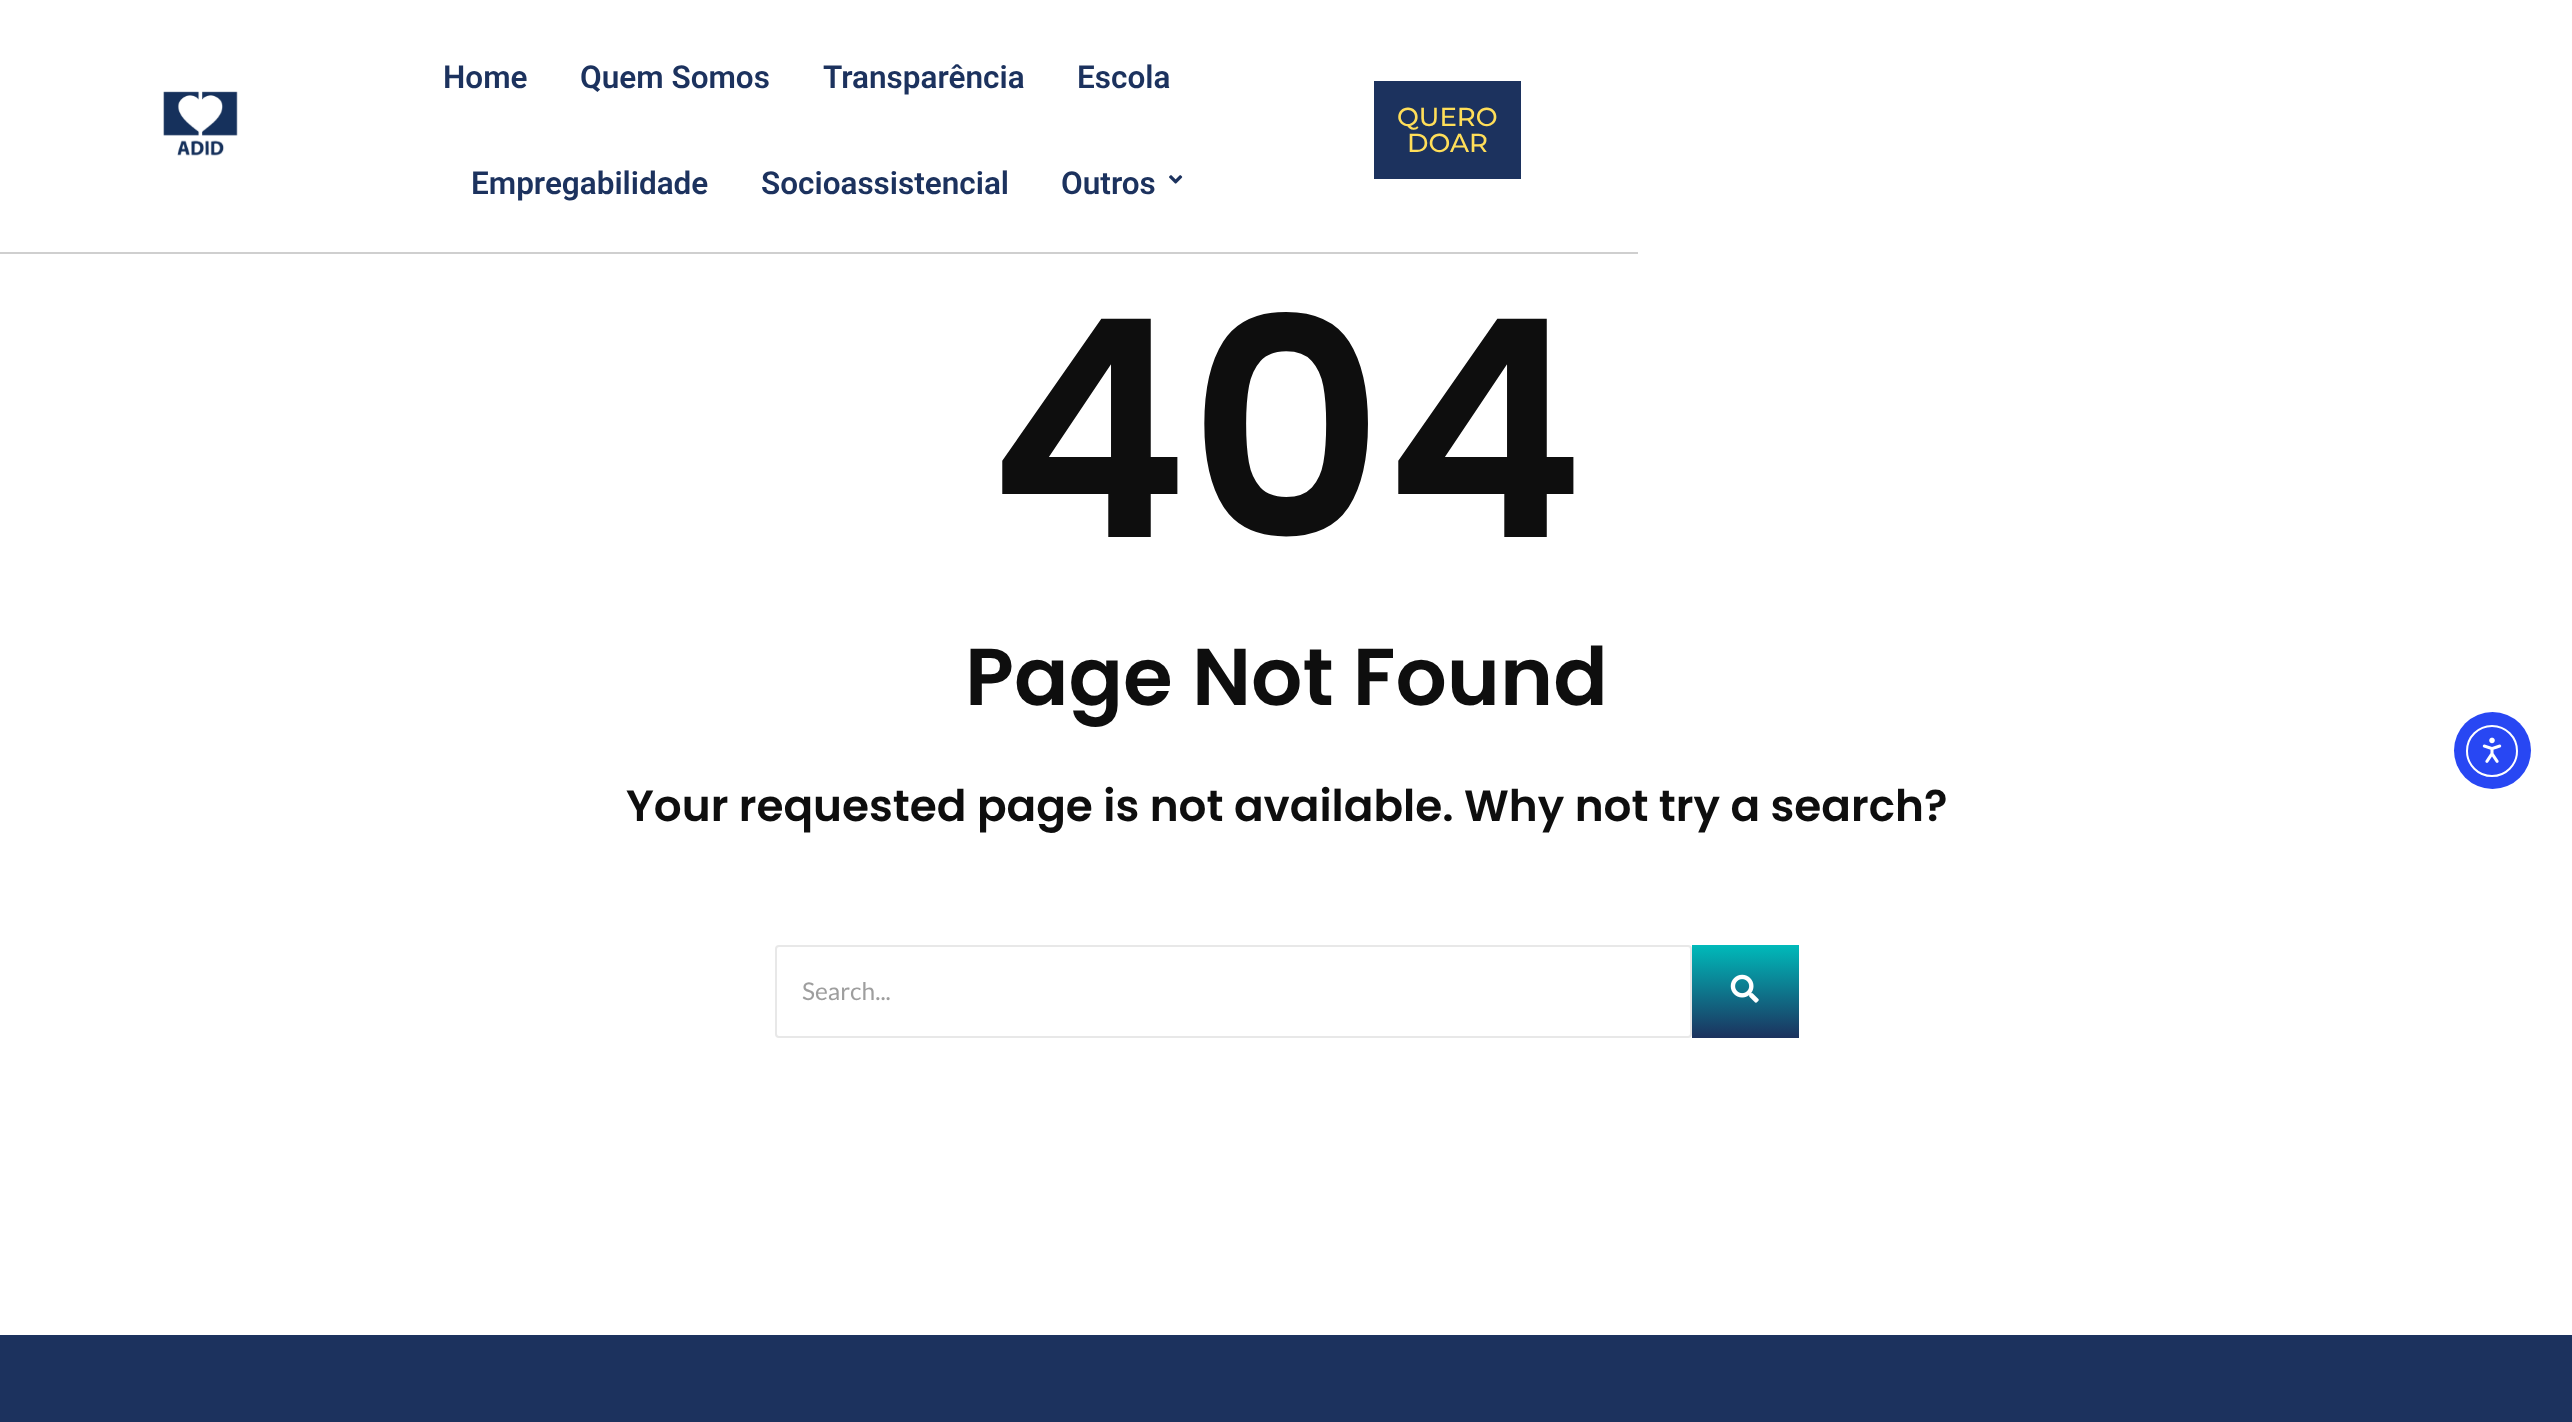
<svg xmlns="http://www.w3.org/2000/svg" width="2572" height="1422">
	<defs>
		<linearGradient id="g1" gradientUnits="userSpaceOnUse" x1="1746" y1="945" x2="1746" y2="1038"><stop offset="0" stop-color="#00BABA" /><stop offset="1" stop-color="#1C325E" /></linearGradient>
	</defs>
	<rect width="100%" height="100%" fill="#FFFFFF" />
	<rect x="0" y="252" width="1638" height="2" fill="#CFCFCF" />
	<image x="163" y="91" width="75" height="65" href="assets/img1.png" />
	<g font-family="Roboto" font-size="31.5" font-weight="600" fill="#1C325E">
		<text x="443" y="88">Home</text>
		<text x="580" y="88">Quem Somos</text>
		<text x="823" y="88">Transparência</text>
		<text x="1077" y="88">Escola</text>
		<text x="471" y="194">Empregabilidade</text>
		<text x="761" y="194">Socioassistencial</text>
		<text x="1061" y="194">Outros</text>
	</g>
	<image x="1169" y="175" width="14" height="9" href="assets/img2.png" />
	<rect x="1374" y="81" width="147" height="98" fill="#1C325E" />
	<g font-family="Montserrat" font-size="26" font-weight="500" fill="#FFDE59">
		<text x="1397" y="126">QUERO</text>
		<text x="1407" y="152">DOAR</text>
	</g>
	<text x="988" y="537" font-family="Poppins" font-size="303" font-weight="600" fill="#0E0E0E">404</text>
	<text x="965" y="705" font-family="Poppins" font-size="80.5" font-weight="600" fill="#0E0E0E">Page Not Found</text>
	<text x="626" y="821" font-family="Poppins" font-size="43.75" font-weight="600" fill="#0E0E0E">Your requested page is not available. Why not try a search?</text>
	<rect x="776" y="946" width="915" height="91" rx="3" fill="none" stroke="#E8E8E8" stroke-width="2" />
	<text x="802" y="1000" font-family="Lato" font-size="24.5" fill="#9E9E9E">Search...</text>
	<rect x="1692" y="945" width="107" height="93" fill="url(#g1)" />
	<image x="1730" y="974" width="29" height="29" href="assets/img3.png" />
	<circle cx="2492.5" cy="750.5" r="38.5" fill="#2847F3" />
	<circle cx="2492" cy="751" r="25" fill="none" stroke="#FFFFFF" stroke-width="2" />
	<image x="2482" y="737" width="20" height="26" href="assets/img4.png" />
	<rect x="0" y="1335" width="2572" height="87" fill="#1C325E" />
</svg>
